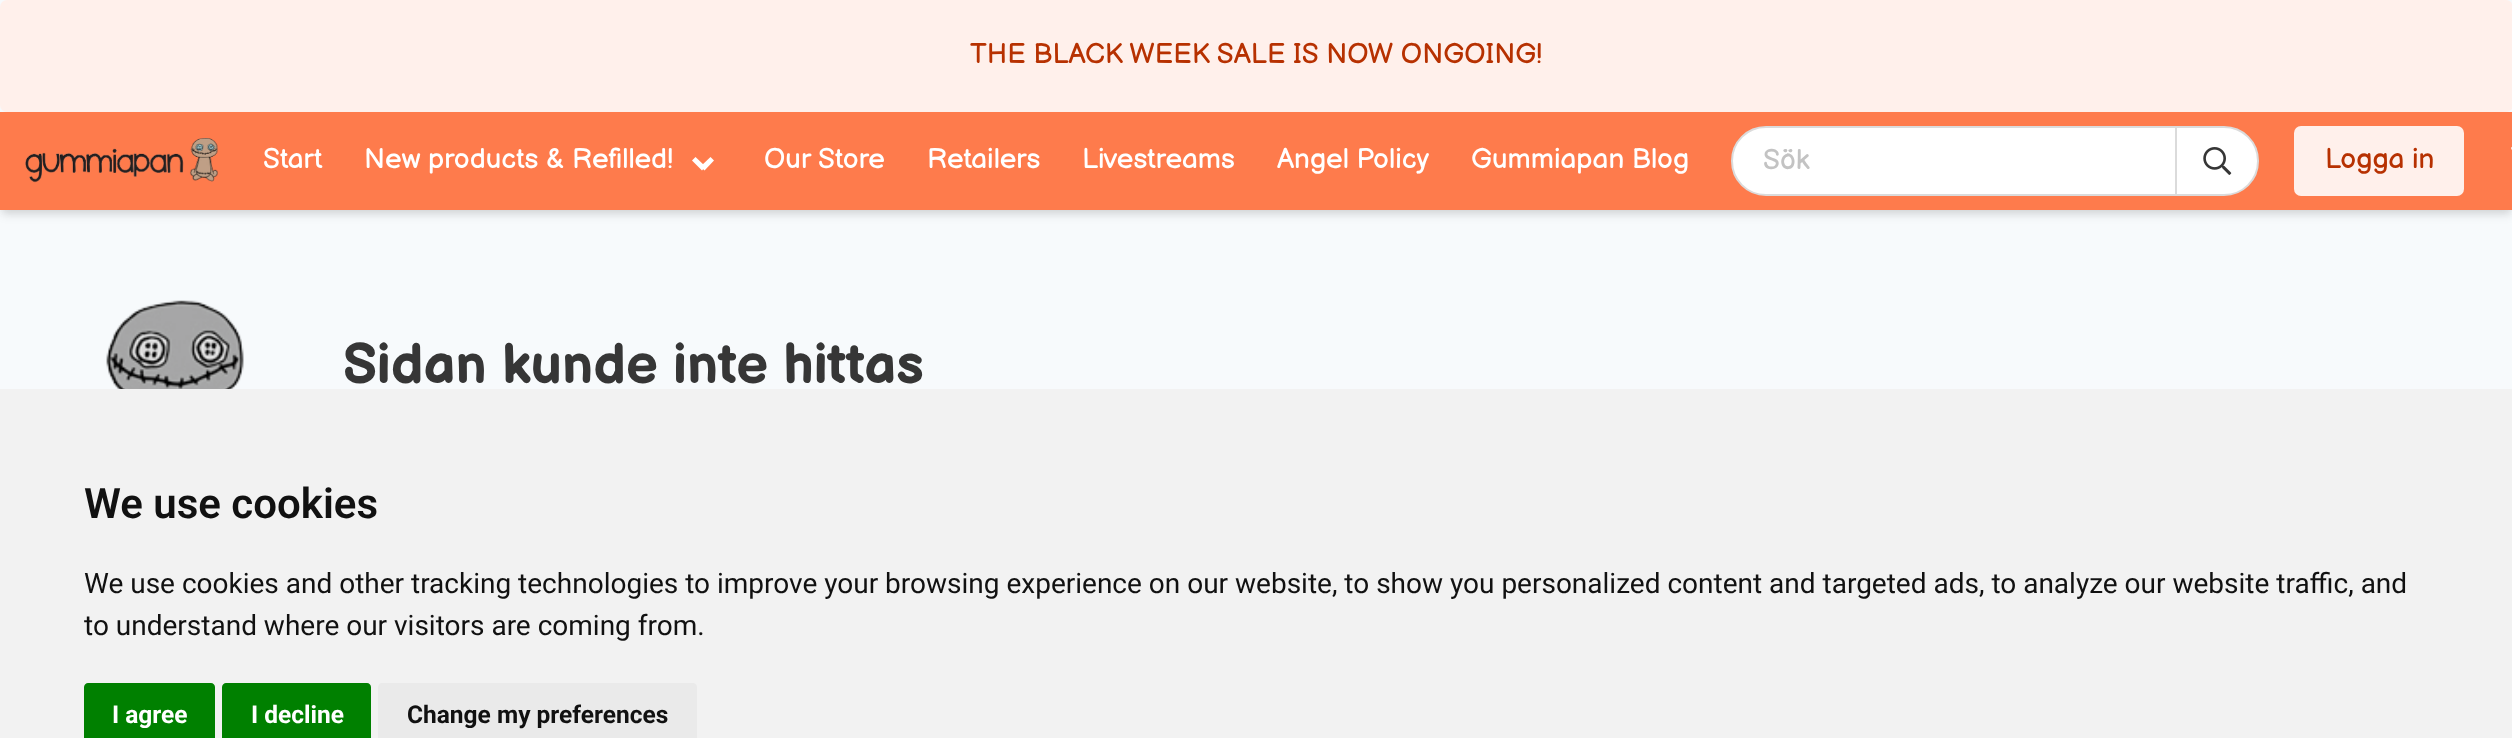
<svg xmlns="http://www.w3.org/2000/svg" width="2512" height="738">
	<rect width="100%" height="100%" fill="#F7FAFC" />
	<rect x="0" y="0" width="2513" height="112" rx="7" fill="#FFF0EB" />
	<text x="970" y="63" font-family="Balsamiq Sans" font-size="28" fill="#B73101">THE BLACK WEEK SALE IS NOW ONGOING!</text>
	<rect x="2" y="117" width="2509" height="95" fill="#000000" fill-opacity="0.06" filter="blur(3.5px)" />
	<rect x="2" y="121" width="2509" height="94" fill="#000000" fill-opacity="0.1" filter="blur(5px)" />
	<rect x="0" y="112" width="2512" height="98" fill="#FE7B4C" />
	<image x="25" y="138" width="193" height="45" href="assets/img1.png" />
	<g font-family="Balsamiq Sans" font-size="28" fill="#FFFFFF">
		<text x="263" y="168">Start</text>
		<text x="364" y="168">New products &amp; Refilled!</text>
	</g>
	<path d="M700.5 166.5L710.5 157L714 160.5L704.5 170.5Z" fill="#FFFFFF" />
	<path d="M692 160.5L695.5 157L705.5 166.5L702 170.5Z" fill="#FFFFFF" />
	<g font-family="Balsamiq Sans" font-size="28" fill="#FFFFFF">
		<text x="764" y="168">Our Store</text>
		<text x="927" y="168">Retailers</text>
		<text x="1082" y="168">Livestreams</text>
		<text x="1277" y="168">Angel Policy</text>
		<text x="1471" y="168">Gummiapan Blog</text>
	</g>
	<path d="M1766 127H2176V195H1766C1747 195 1732 180 1732 161C1732 142 1747 127 1766 127Z" fill="#FFFFFF" stroke="#DBDBDB" stroke-width="2" />
	<text x="1763" y="169" font-family="Balsamiq Sans" font-size="28" fill="#C3C3C3">Sök</text>
	<path d="M2176 127H2224C2243 127 2258 142 2258 161C2258 180 2243 195 2224 195H2176Z" fill="#FFFFFF" stroke="#DBDBDB" stroke-width="2" />
	<image x="2203" y="147" width="29" height="28" href="assets/img2.png" />
	<rect x="2294" y="126" width="170" height="70" rx="7" fill="#FFF0EB" />
	<text x="2325" y="168" font-family="Balsamiq Sans" font-size="28" fill="#B73101">Logga in</text>
	<image x="2511" y="147" width="1" height="3" href="assets/img3.png" />
	<image x="106" y="300" width="138" height="89" href="assets/img4.png" />
	<text x="343" y="383" font-family="Balsamiq Sans" font-size="56" font-weight="700" fill="#363636">Sidan kunde inte hittas</text>
	<rect x="0" y="389" width="2512" height="349" fill="#F2F2F2" />
	<text x="84" y="518" font-family="Roboto" font-size="42" font-weight="600" fill="#111111">We use cookies</text>
	<g font-family="Roboto" font-size="28" fill="#111111">
		<text x="84" y="593">We use cookies and other tracking technologies to improve your browsing experience on our website, to show you personalized content and targeted ads, to analyze our website traffic, and</text>
		<text x="84" y="635">to understand where our visitors are coming from.</text>
	</g>
	<path d="M88 683H211C213 683 215 685 215 687V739H84V687C84 685 86 683 88 683Z" fill="#008000" />
	<text x="112" y="723" font-family="Roboto" font-size="24.5" font-weight="700" fill="#FFFFFF">I agree</text>
	<path d="M226 683H367C369 683 371 685 371 687V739H222V687C222 685 224 683 226 683Z" fill="#008000" />
	<text x="251" y="723" font-family="Roboto" font-size="24.5" font-weight="700" fill="#FFFFFF">I decline</text>
	<path d="M382 683H693C695 683 697 685 697 687V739H378V687C378 685 380 683 382 683Z" fill="#EAEAEA" />
	<text x="407" y="723" font-family="Roboto" font-size="24.5" font-weight="700" fill="#111111">Change my preferences</text>
</svg>
